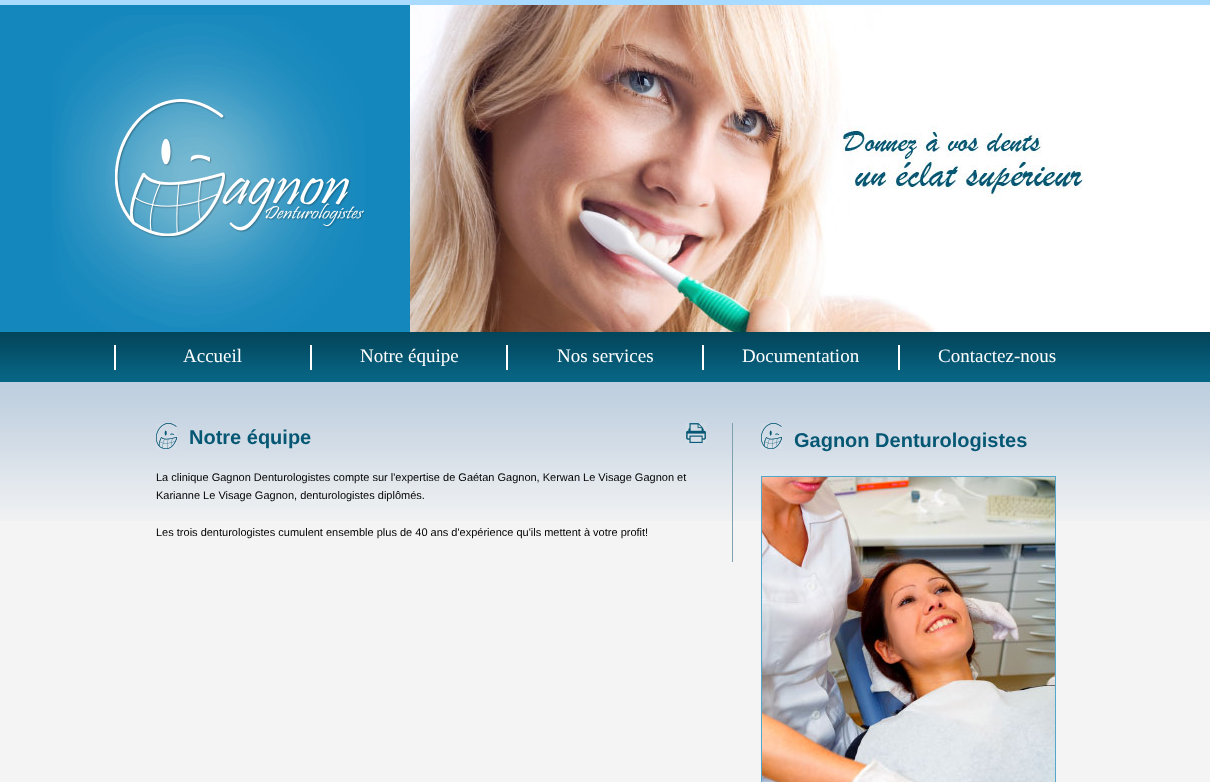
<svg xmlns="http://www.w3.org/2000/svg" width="1210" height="782">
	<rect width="100%" height="100%" fill="#F4F4F4" />
	<image x="0" y="0" width="1210" height="521" href="assets/img1.png" />
	<image x="52" y="15" width="313" height="317" href="assets/img2.png" />
	<image x="410" y="5" width="674" height="327" href="assets/img3.png" />
	<rect x="114" y="345" width="2" height="25" fill="#FFFFFF" />
	<text x="183" y="362" font-family="Liberation Serif" font-size="19" fill="#FFFFFF">Accueil</text>
	<rect x="310" y="345" width="2" height="25" fill="#FFFFFF" />
	<text x="360" y="362" font-family="Liberation Serif" font-size="19" fill="#FFFFFF">Notre équipe</text>
	<rect x="506" y="345" width="2" height="25" fill="#FFFFFF" />
	<text x="557" y="362" font-family="Liberation Serif" font-size="19" fill="#FFFFFF">Nos services</text>
	<rect x="702" y="345" width="2" height="25" fill="#FFFFFF" />
	<text x="742" y="362" font-family="Liberation Serif" font-size="19" fill="#FFFFFF">Documentation</text>
	<rect x="898" y="345" width="2" height="25" fill="#FFFFFF" />
	<text x="938" y="362" font-family="Liberation Serif" font-size="19" fill="#FFFFFF">Contactez-nous</text>
	<rect x="732" y="423" width="1" height="139" fill="#7FA0AF" />
	<image x="156" y="423" width="21" height="26" href="assets/img4.png" />
	<text x="189" y="444" font-family="Liberation Sans" font-size="20" font-weight="700" fill="#055773">Notre équipe</text>
	<image x="686" y="423" width="20" height="20" href="assets/img5.png" />
	<g font-family="Liberation Sans" font-size="11" fill="#000000">
		<text x="156" y="481">La clinique Gagnon Denturologistes compte sur l'expertise de Gaétan Gagnon, Kerwan Le Visage Gagnon et</text>
		<text x="156" y="499">Karianne Le Visage Gagnon, denturologistes diplômés.</text>
		<text x="156" y="536">Les trois denturologistes cumulent ensemble plus de 40 ans d'expérience qu'ils mettent à votre profit!</text>
	</g>
	<image x="761" y="423" width="21" height="26" href="assets/img4.png" />
	<text x="794" y="447" font-family="Liberation Sans" font-size="20" font-weight="700" fill="#055773">Gagnon Denturologistes</text>
	<rect x="761.5" y="476.5" width="294" height="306" fill="none" stroke="#53A7CA" />
	<image x="762" y="477" width="293" height="305" href="assets/img6.png" />
</svg>
